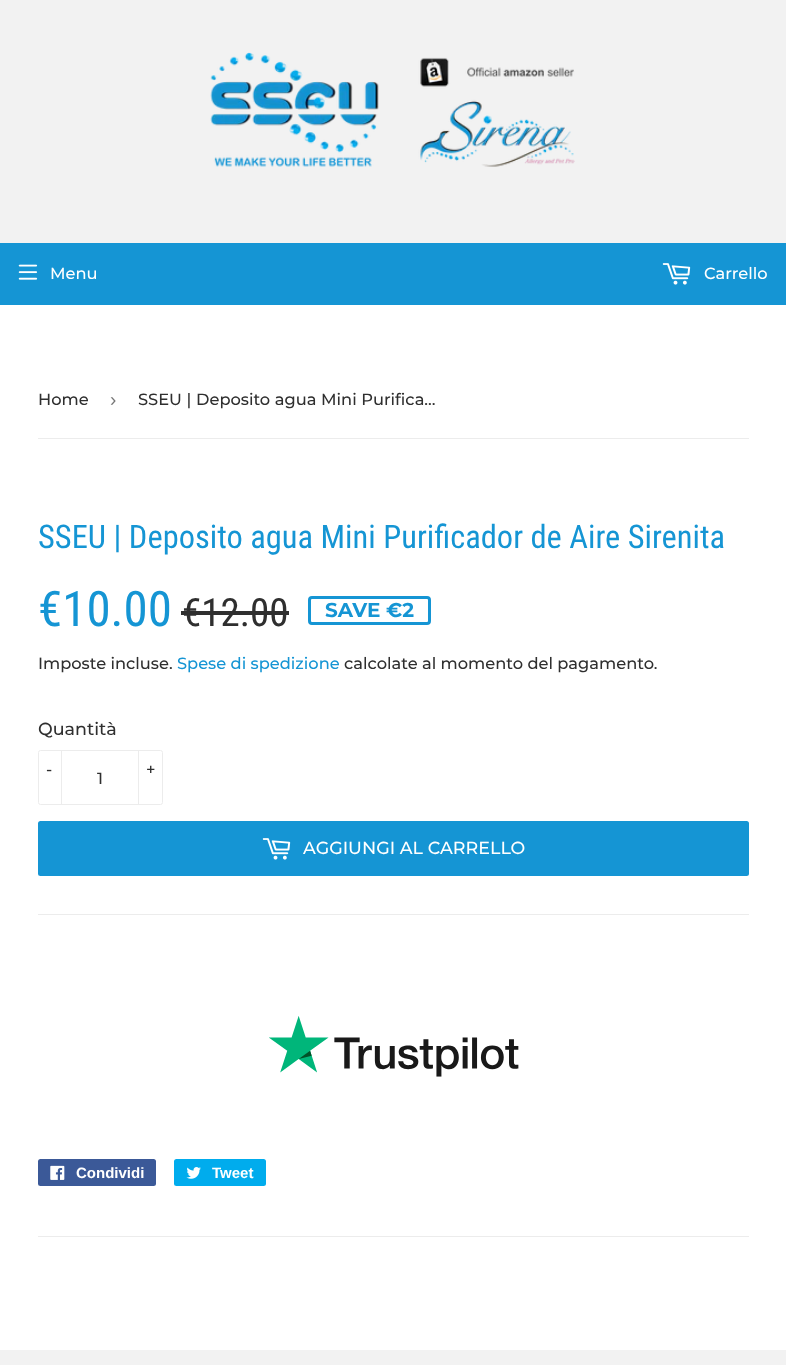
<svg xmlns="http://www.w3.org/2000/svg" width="786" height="1365">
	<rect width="100%" height="100%" fill="#FFFFFF" />
	<rect x="0" y="0" width="786" height="243" fill="#F2F2F2" />
	<image x="210" y="52" width="365" height="115" href="assets/img1.png" />
	<rect x="0" y="243" width="786" height="62" fill="#1595D4" />
	<image x="18" y="264" width="20" height="16" href="assets/img2.png" />
	<text x="50" y="279" font-family="Montserrat" font-size="16.25" font-weight="500" fill="#FFFFFF">Menu</text>
	<image x="662" y="263" width="29" height="22" href="assets/img3.png" />
	<text x="704" y="279" font-family="Montserrat" font-size="16.25" font-weight="500" fill="#FFFFFF">Carrello</text>
	<rect x="38" y="438" width="711" height="1" fill="#ECECEC" />
	<text x="38" y="405" font-family="Montserrat" font-size="16.25" font-weight="500" fill="#2F2F2F">Home</text>
	<text x="110" y="406" font-family="Liberation Sans" font-size="19" fill="#767676">›</text>
	<text x="138" y="405" word-spacing="0.25" font-family="Montserrat" font-size="16.25" font-weight="500" fill="#2F2F2F">SSEU | Deposito agua Mini Purifica…</text>
	<text x="38" y="548" font-family="Roboto Condensed" font-size="32.5" fill="#1595D4">SSEU | Deposito agua Mini Purificador de Aire Sirenita</text>
	<text x="38" y="626" font-family="Roboto Condensed" font-size="49" fill="#1595D4">€10.00</text>
	<text x="182" y="626" font-family="Roboto Condensed" font-size="39" fill="#2F2F2F">€12.00</text>
	<rect x="181" y="611" width="108" height="4" fill="#2F2F2F" />
	<rect x="309.5" y="597.5" width="120" height="26" rx="2.5" fill="none" stroke="#1595D4" stroke-width="3" />
	<text x="325" y="617" font-family="Montserrat" font-size="20" font-weight="700" fill="#1595D4">SAVE €2</text>
	<text x="38" y="669" font-family="Montserrat" font-size="16.25" font-weight="500" fill="#2F2F2F">Imposte incluse.</text>
	<text x="177" y="669" font-family="Montserrat" font-size="16.25" font-weight="500" fill="#1595D4">Spese di spedizione</text>
	<text x="344" y="669" font-family="Montserrat" font-size="16.25" font-weight="500" fill="#2F2F2F">calcolate al momento del pagamento.</text>
	<text x="38" y="735" font-family="'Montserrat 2'" font-size="17.5" font-weight="500" fill="#2F2F2F">Quantità</text>
	<rect x="38.5" y="750.5" width="124" height="54" rx="2" fill="none" stroke="#ECECEC" />
	<rect x="61" y="750" width="1" height="55" fill="#ECECEC" />
	<text x="46" y="775" font-family="Montserrat" font-size="16.25" font-weight="500" fill="#2F2F2F">-</text>
	<rect x="138" y="750" width="1" height="55" fill="#ECECEC" />
	<g font-family="Montserrat" font-size="16.25" font-weight="500" fill="#2F2F2F">
		<text x="146" y="775">+</text>
		<text x="97" y="784">1</text>
	</g>
	<rect x="38" y="821" width="711" height="55" rx="2.5" fill="#1595D4" />
	<image x="262" y="838" width="29" height="22" href="assets/img3.png" />
	<text x="303" y="854" font-family="'Montserrat 2'" font-size="17.5" font-weight="500" fill="#FFFFFF">AGGIUNGI AL CARRELLO</text>
	<rect x="38" y="914" width="711" height="1" fill="#ECECEC" />
	<image x="269" y="1016" width="250" height="61" href="assets/img4.png" />
	<rect x="38" y="1159" width="118" height="27" rx="2.5" fill="#3B5998" />
	<image x="50" y="1165" width="15" height="15" href="assets/img5.png" />
	<text x="76" y="1178" font-family="Liberation Sans" font-size="15" font-weight="700" fill="#FFFFFF">Condividi</text>
	<rect x="174" y="1159" width="92" height="27" rx="2.5" fill="#00ACED" />
	<image x="186" y="1167" width="15" height="12" href="assets/img6.png" />
	<text x="212" y="1178" font-family="Liberation Sans" font-size="15" font-weight="700" fill="#FFFFFF">Tweet</text>
	<rect x="38" y="1236" width="711" height="1" fill="#ECECEC" />
	<rect x="0" y="1350" width="786" height="15" fill="#F2F2F2" />
</svg>
